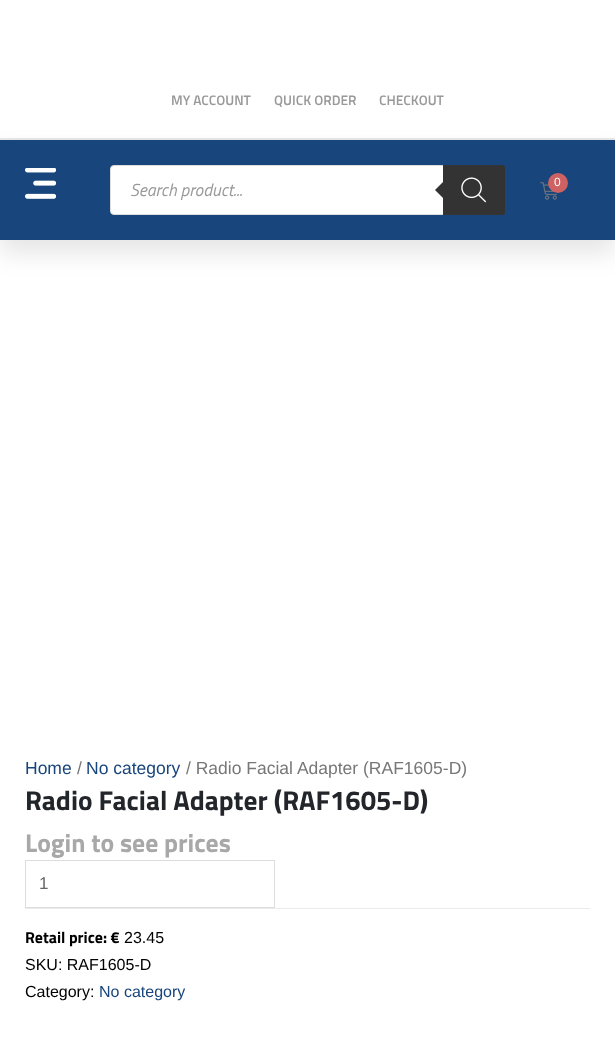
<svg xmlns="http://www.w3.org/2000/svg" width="615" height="1040">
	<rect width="100%" height="100%" fill="#FFFFFF" />
	<rect x="0" y="138" width="615" height="2" fill="#E7E7E7" />
	<g font-family="Titillium Web" font-size="13.75" font-weight="600" fill="#999999">
		<text x="171" y="105">MY ACCOUNT</text>
		<text x="274" y="105">QUICK ORDER</text>
		<text x="379" y="105">CHECKOUT</text>
	</g>
	<rect x="0" y="153" width="615" height="100" fill="#000000" fill-opacity="0.1" filter="blur(12.5px)" />
	<rect x="0" y="140" width="615" height="100" fill="#18457B" />
	<image x="25" y="168" width="31" height="31" href="assets/img1.png" />
	<image x="540" y="182" width="17" height="18" href="assets/img2.png" />
	<circle cx="558" cy="183" r="10" fill="#CE6161" />
	<text x="554" y="186" font-family="Liberation Sans" font-size="12" fill="#FFFFFF">0</text>
	<rect x="110.5" y="165.5" width="394" height="49" rx="3.5" fill="#FFFFFF" stroke="#DDDDDD" />
	<text x="130" y="196" font-family="Titillium Web" font-size="17.5" font-style="italic" fill="#999999">Search product...</text>
	<path d="M443 165H502.5C504 165 505 166 505 167.5V212.5C505 214 504 215 502.5 215H443Z" fill="#333333" />
	<path d="M445 180V200L435 190Z" fill="#333333" />
	<image x="461" y="177" width="25" height="26" href="assets/img3.png" />
	<text x="25" y="774" font-family="Liberation Sans" font-size="17.5" fill="#18457B">Home</text>
	<text x="77" y="774" font-family="Liberation Sans" font-size="17.5" fill="#777777">/</text>
	<text x="86" y="774" font-family="Liberation Sans" font-size="17.5" fill="#18457B">No category</text>
	<text x="186" y="774" font-family="Liberation Sans" font-size="17.5" fill="#777777">/ Radio Facial Adapter (RAF1605-D)</text>
	<text x="25" y="810" font-family="Titillium Web" font-size="27.4" font-weight="700" fill="#222529">Radio Facial Adapter (RAF1605-D)</text>
	<text x="25" y="852" font-family="Titillium Web" font-size="25.75" font-weight="700" fill="#A8A8A8">Login to see prices</text>
	<rect x="25.5" y="860.5" width="249" height="47" fill="none" stroke="#DDDDDD" />
	<text x="39" y="889" font-family="Liberation Sans" font-size="17" fill="#666666">1</text>
	<rect x="25" y="908" width="565" height="1" fill="#EBEBEB" />
	<text x="25" y="943" font-family="Titillium Web" font-size="16" font-weight="700" fill="#000000">Retail price: €</text>
	<g font-family="Liberation Sans" font-size="16" fill="#000000">
		<text x="124" y="943">23.45</text>
		<text x="25" y="970">SKU: RAF1605-D</text>
		<text x="25" y="997">Category:</text>
	</g>
	<text x="99" y="997" font-family="Liberation Sans" font-size="16" fill="#18457B">No category</text>
</svg>
